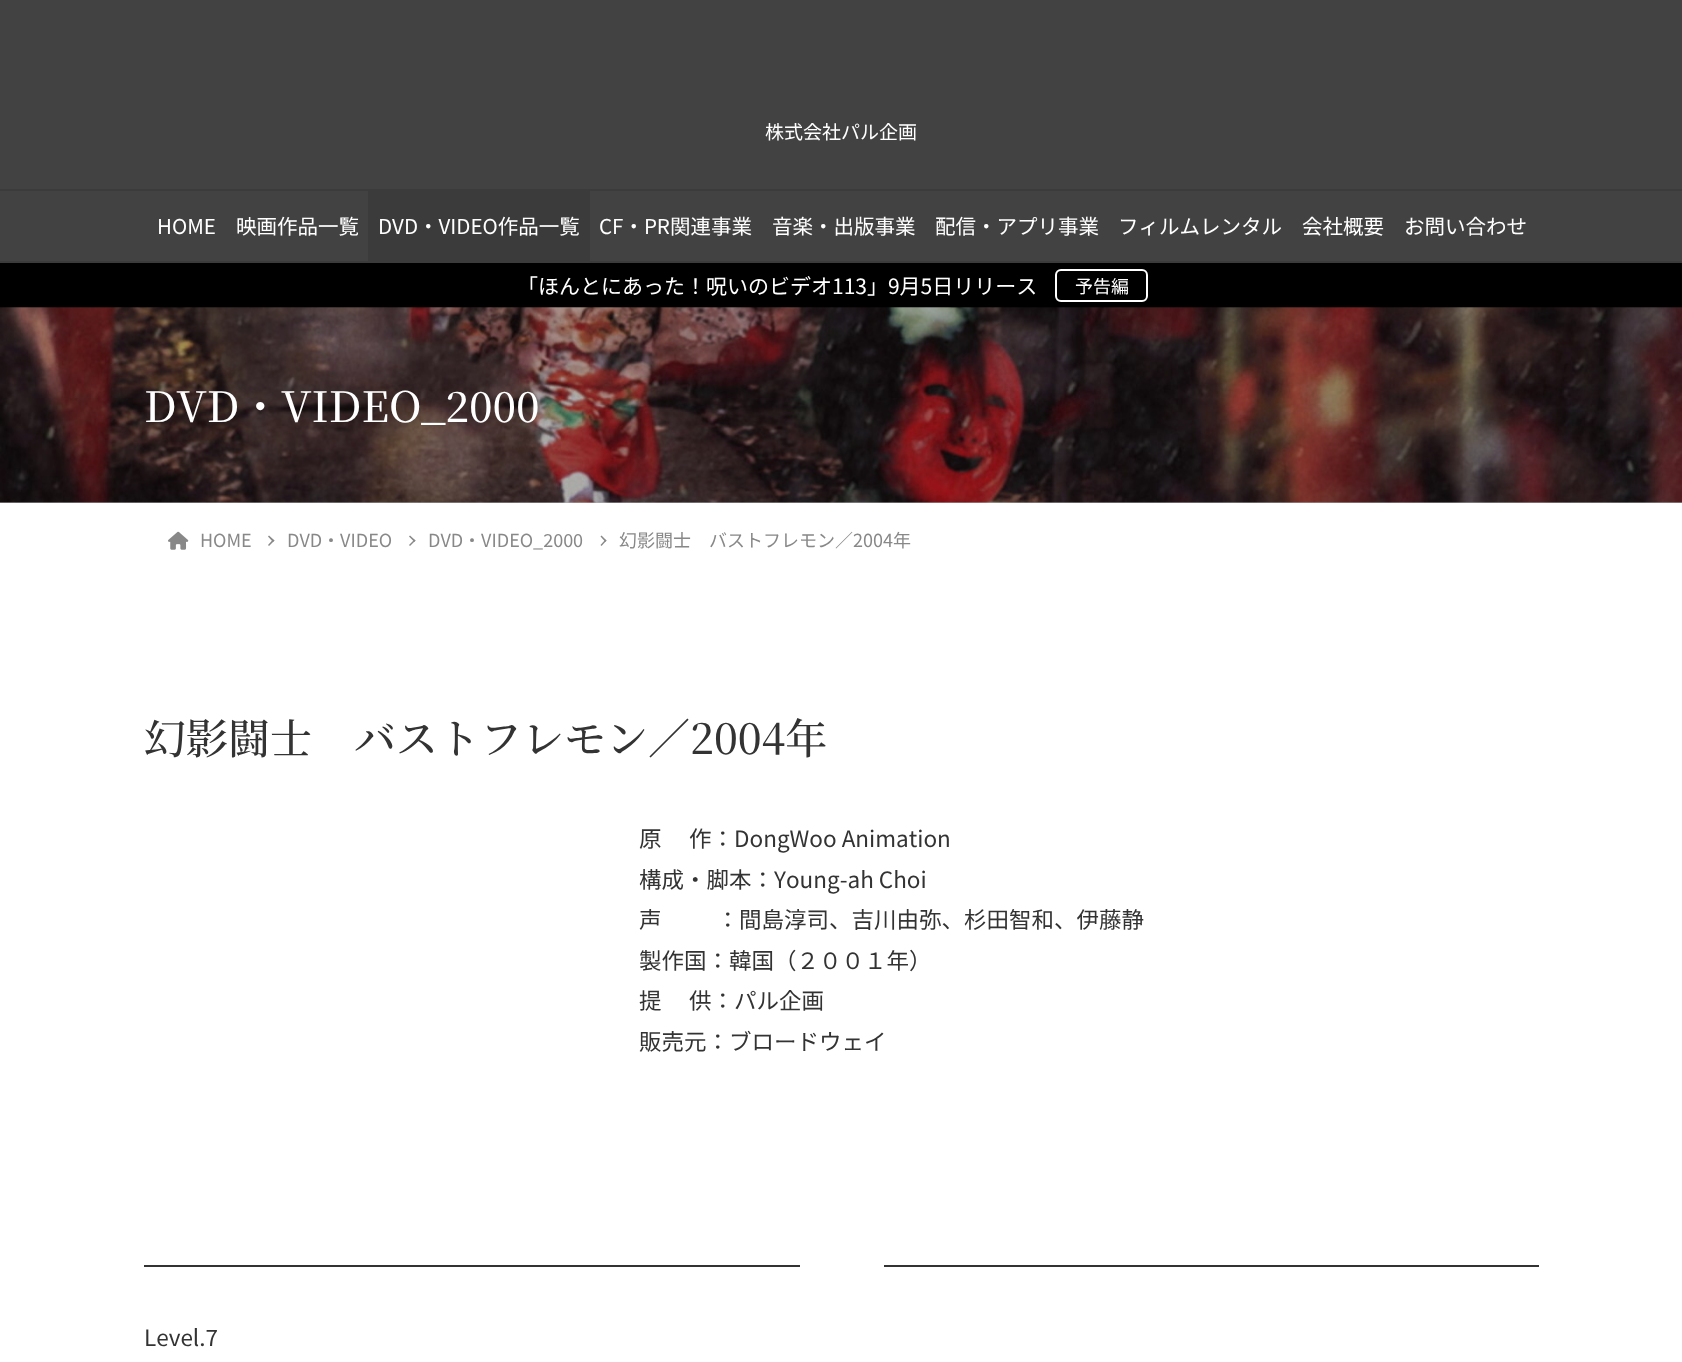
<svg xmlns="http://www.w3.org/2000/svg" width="1682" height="1362">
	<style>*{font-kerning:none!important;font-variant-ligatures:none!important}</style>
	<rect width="100%" height="100%" fill="#FFFFFF" />
	<rect x="0" y="502" width="1682" height="1" fill="#B3B3B3" />
	<rect x="0" y="263" width="1682" height="45" fill="#000000" />
	<rect x="1056" y="270" width="91" height="31" rx="5" fill="none" stroke="#FFFFFF" stroke-width="2" />
	<rect x="-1" y="0" width="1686" height="266" fill="#000000" fill-opacity="0.05" filter="blur(1.5px)" />
	<rect x="0" y="0" width="1682" height="261" fill="#424242" />
	<text x="765" y="139" font-family="Noto Sans JP" font-size="19" fill="#FFFFFF">株式会社パル企画</text>
	<rect x="0" y="189" width="1682" height="2" fill="#3B3B3B" />
	<rect x="0" y="261" width="1682" height="2" fill="#3B3B3B" />
	<g font-family="Noto Sans JP" font-size="20.5" fill="#FFFFFF">
		<text x="157" y="234">HOME</text>
		<text x="236" y="234">映画作品一覧</text>
	</g>
	<rect x="368" y="191" width="222" height="70" fill="#3B3B3B" />
	<g font-family="Noto Sans JP" font-size="20.5" fill="#FFFFFF">
		<text x="378" y="234">DVD・VIDEO作品一覧</text>
		<text x="599" y="234">CF・PR関連事業</text>
		<text x="772" y="234">音楽・出版事業</text>
		<text x="935" y="234">配信・アプリ事業</text>
		<text x="1118" y="234">フィルムレンタル</text>
		<text x="1302" y="234">会社概要</text>
		<text x="1404" y="234">お問い合わせ</text>
	</g>
	<text x="517" y="294" font-family="Noto Sans JP" font-size="21" fill="#FFFFFF">「ほんとにあった！呪いのビデオ113」9月5日リリース</text>
	<text x="1075" y="293" font-family="Noto Sans JP" font-size="18" fill="#FFFFFF">予告編</text>
	<image x="0" y="307" width="1682" height="196" href="assets/img1.png" />
	<text x="144" y="422" font-family="Noto Serif JP" font-size="42" font-weight="200" fill="#FFFFFF">DVD・VIDEO_2000</text>
	<image x="168" y="531" width="21" height="19" href="assets/img2.png" />
	<text x="200" y="547" font-family="Noto Sans JP" font-size="18" fill="#888888">HOME</text>
	<path d="M269 535.5L274.5 540.5L273 542L268 536.5Z" fill="#888888" />
	<path d="M273 539.5L274.5 540.5L269 546L268 545Z" fill="#888888" />
	<text x="287" y="547" font-family="Noto Sans JP" font-size="18" fill="#888888">DVD・VIDEO</text>
	<path d="M410 535.5L415.5 540.5L414.5 542L409 536.5Z" fill="#888888" />
	<path d="M414.5 539.5L415.5 540.5L410 546L409 545Z" fill="#888888" />
	<text x="428" y="547" font-family="Noto Sans JP" font-size="18" fill="#888888">DVD・VIDEO_2000</text>
	<path d="M601.5 535.5L606.5 540.5L605.5 542L600.5 536.5Z" fill="#888888" />
	<path d="M605.5 539.5L606.5 540.5L601.5 546L600.5 545Z" fill="#888888" />
	<text x="619" y="547" font-family="Noto Sans JP" font-size="18" fill="#888888">幻影闘士　バストフレモン／2004年</text>
	<text x="144" y="754" font-family="Noto Serif JP" font-size="42" font-weight="200" fill="#333333">幻影闘士　バストフレモン／2004年</text>
	<g font-family="Noto Sans JP" font-size="22.5" fill="#333333">
		<text x="639" y="847">原 　作：DongWoo Animation</text>
		<text x="639" y="888">構成・脚本：Young-ah Choi</text>
		<text x="639" y="928">声　 　 ：間島淳司、吉川由弥、杉田智和、伊藤静</text>
		<text x="639" y="969">製作国：韓国（２００１年）</text>
		<text x="639" y="1009">提　 供：パル企画</text>
		<text x="639" y="1050">販売元：ブロードウェイ</text>
	</g>
	<rect x="144" y="1265" width="656" height="2" fill="#333333" />
	<rect x="884" y="1265" width="655" height="2" fill="#333333" />
	<text x="144" y="1346" font-family="Noto Sans JP" font-size="22.5" fill="#333333">Level.7</text>
</svg>
